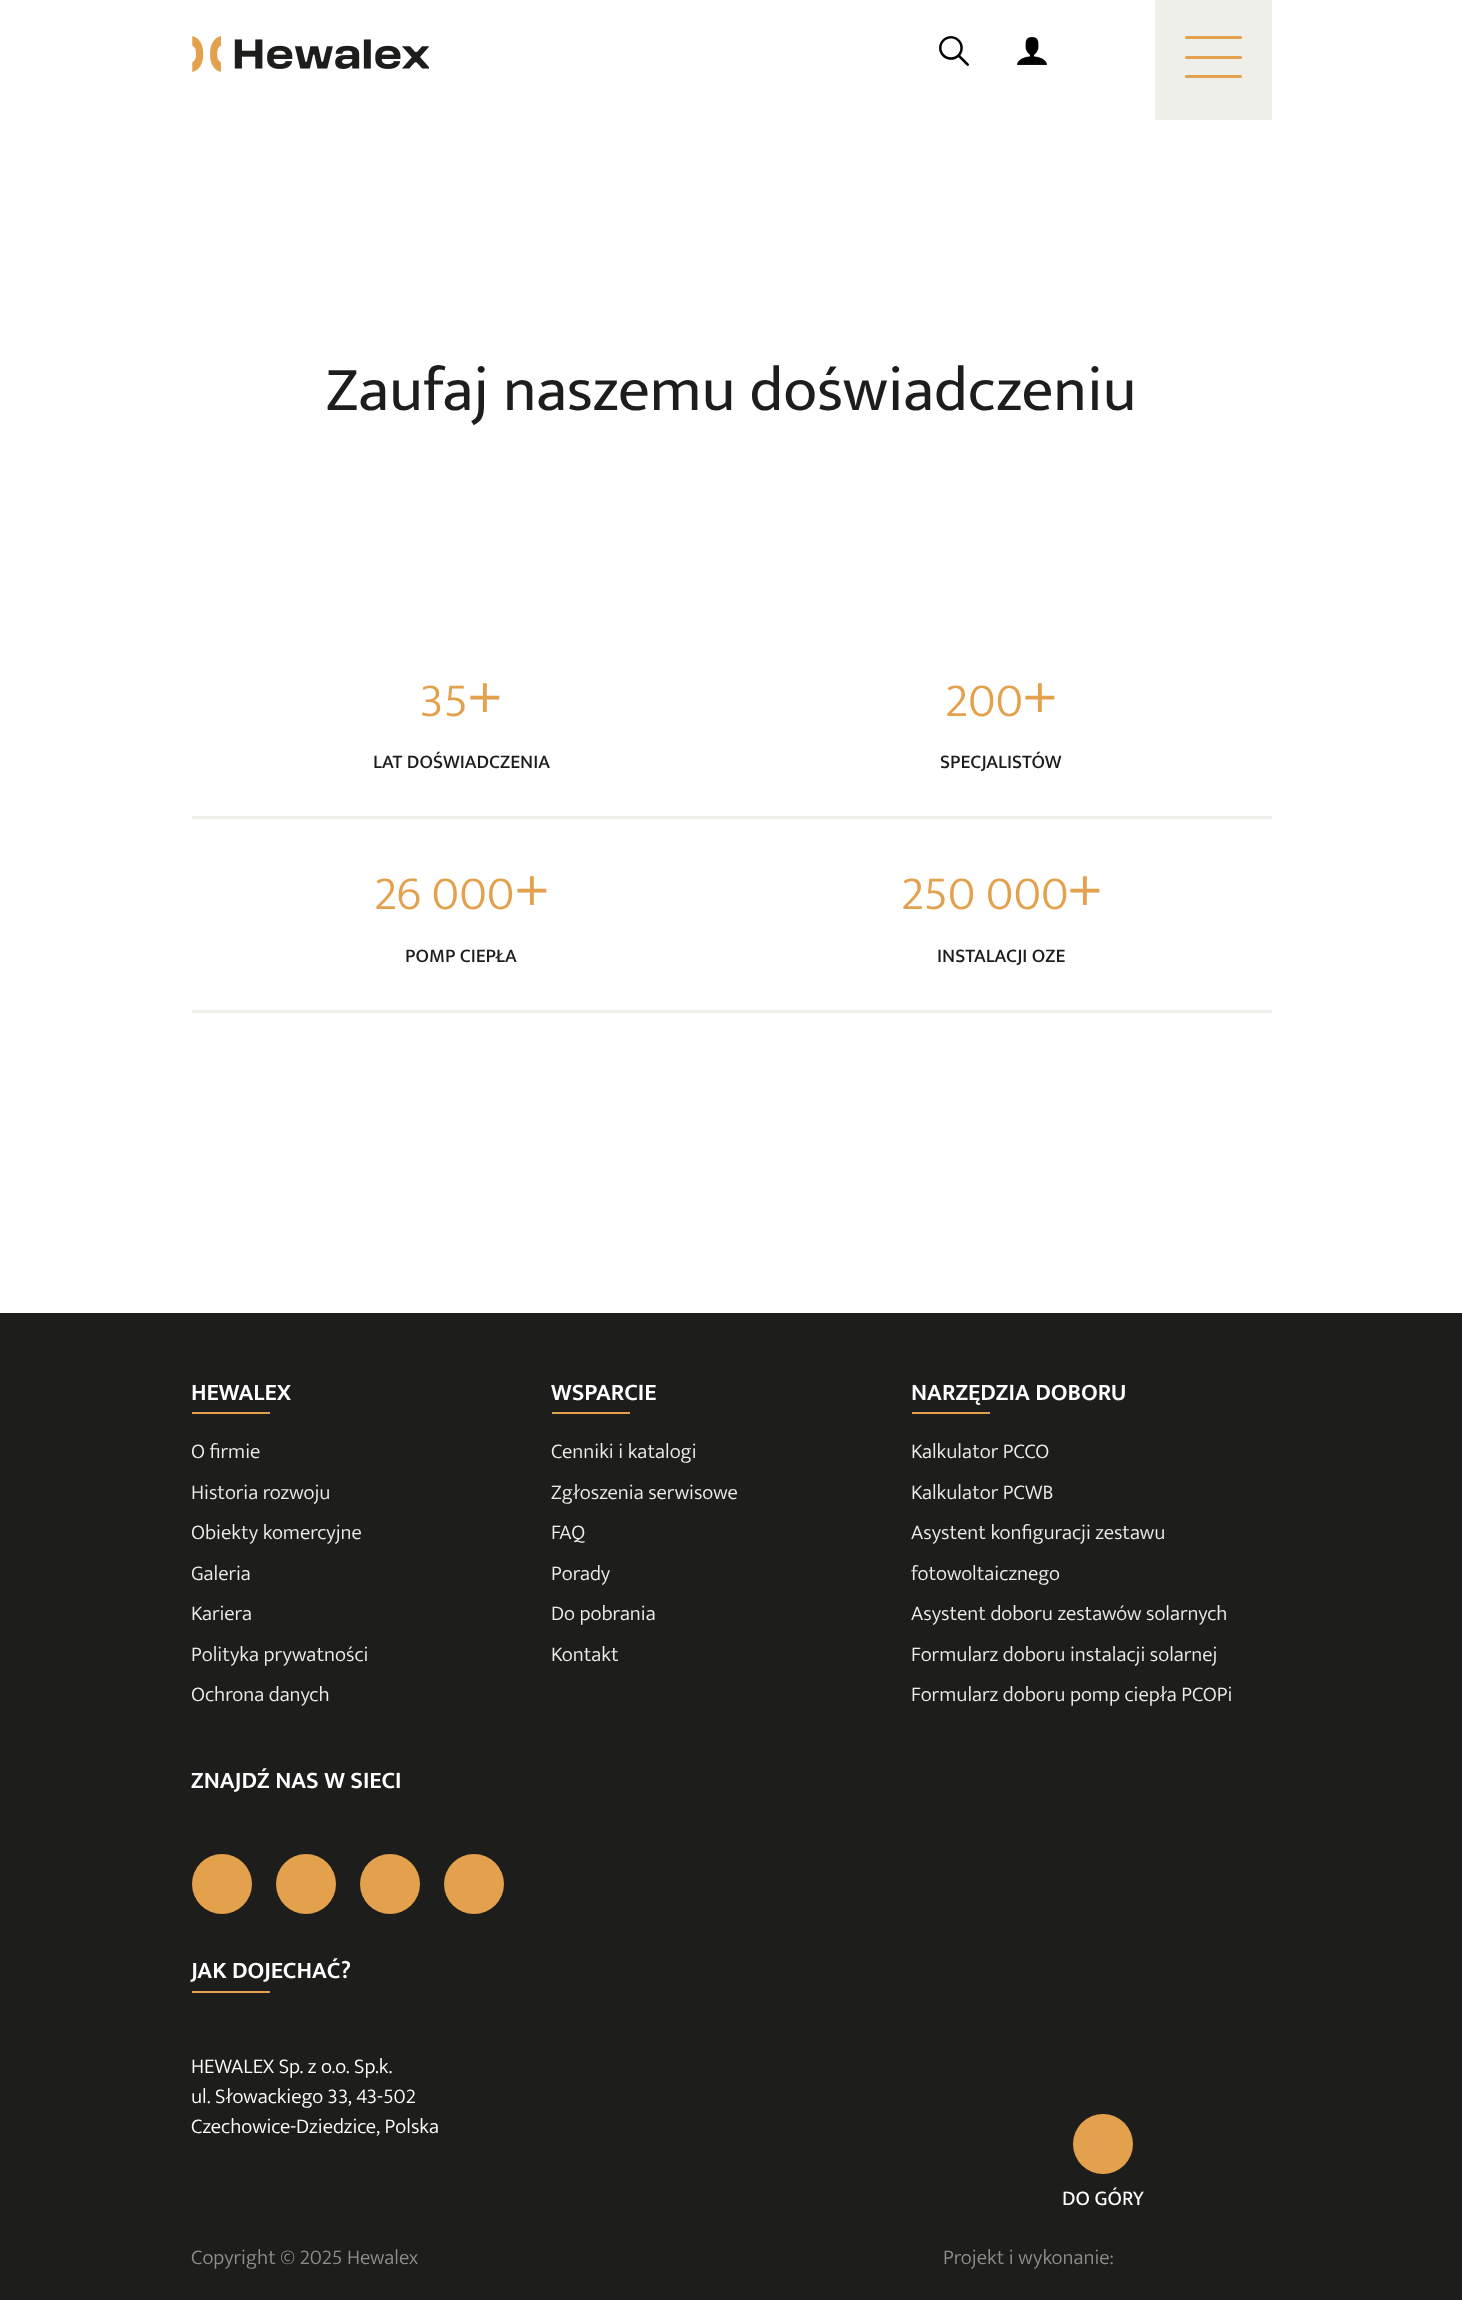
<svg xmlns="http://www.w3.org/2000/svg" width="1462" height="2300">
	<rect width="100%" height="100%" fill="#FFFFFF" />
	<image x="192" y="36" width="237" height="36" href="assets/img1.png" />
	<image x="939" y="36" width="30" height="30" href="assets/img2.png" />
	<image x="1017" y="37" width="30" height="28" href="assets/img3.png" />
	<rect x="1155" y="0" width="117" height="120" fill="#EFEFE9" />
	<rect x="1185" y="36" width="57" height="3" rx="1.5" fill="#E3A14E" />
	<rect x="1185" y="56" width="57" height="3" rx="1.5" fill="#E3A14E" />
	<rect x="1185" y="75" width="57" height="3" rx="1.5" fill="#E3A14E" />
	<text x="326" y="410" font-family="Mukta" font-size="63" fill="#1D1D1B">Zaufaj naszemu doświadczeniu</text>
	<rect x="192" y="816" width="1080" height="3" fill="#EFEFE9" />
	<text x="420" y="716" font-family="Mukta" font-size="48" font-weight="300" fill="#E3A14E">35</text>
	<text x="468" y="716" font-family="Mukta" font-size="60" fill="#E3A14E">+</text>
	<text x="373" y="768" font-family="Mukta" font-size="19.5" font-weight="500" fill="#1D1D1B">LAT DOŚWIADCZENIA</text>
	<text x="945" y="716" font-family="Mukta" font-size="48" font-weight="300" fill="#E3A14E">200</text>
	<text x="1023" y="716" font-family="Mukta" font-size="60" fill="#E3A14E">+</text>
	<text x="940" y="768" font-family="Mukta" font-size="19.5" font-weight="500" fill="#1D1D1B">SPECJALISTÓW</text>
	<rect x="192" y="1010" width="1080" height="3" fill="#EFEFE9" />
	<text x="374" y="909" font-family="Mukta" font-size="48" font-weight="300" fill="#E3A14E">26 000</text>
	<text x="515" y="909" font-family="Mukta" font-size="60" fill="#E3A14E">+</text>
	<text x="405" y="962" font-family="Mukta" font-size="19.5" font-weight="500" fill="#1D1D1B">POMP CIEPŁA</text>
	<text x="901" y="909" font-family="Mukta" font-size="48" font-weight="300" fill="#E3A14E">250 000</text>
	<text x="1068" y="909" font-family="Mukta" font-size="60" fill="#E3A14E">+</text>
	<text x="937" y="962" font-family="Mukta" font-size="19.5" font-weight="500" fill="#1D1D1B">INSTALACJI OZE</text>
	<rect x="0" y="1313" width="1462" height="987" fill="#1D1D1B" />
	<text x="191" y="1400" font-family="Mukta" font-size="24" font-weight="600" fill="#FFFFFF">HEWALEX</text>
	<rect x="192" y="1412" width="78" height="2" fill="#E3A14E" />
	<g font-family="Mukta" font-size="21" font-weight="300" fill="#EFEFE9">
		<text x="191" y="1458">O firmie</text>
		<text x="191" y="1499">Historia rozwoju</text>
		<text x="191" y="1539">Obiekty komercyjne</text>
		<text x="191" y="1580">Galeria</text>
		<text x="191" y="1620">Kariera</text>
		<text x="191" y="1661">Polityka prywatności</text>
		<text x="191" y="1701">Ochrona danych</text>
	</g>
	<text x="551" y="1400" font-family="Mukta" font-size="24" font-weight="600" fill="#FFFFFF">WSPARCIE</text>
	<rect x="552" y="1412" width="78" height="2" fill="#E3A14E" />
	<g font-family="Mukta" font-size="21" font-weight="300" fill="#EFEFE9">
		<text x="551" y="1458">Cenniki i katalogi</text>
		<text x="551" y="1499">Zgłoszenia serwisowe</text>
		<text x="551" y="1539">FAQ</text>
		<text x="551" y="1580">Porady</text>
		<text x="551" y="1620">Do pobrania</text>
		<text x="551" y="1661">Kontakt</text>
	</g>
	<text x="911" y="1400" font-family="Mukta" font-size="24" font-weight="600" fill="#FFFFFF">NARZĘDZIA DOBORU</text>
	<rect x="912" y="1412" width="78" height="2" fill="#E3A14E" />
	<g font-family="Mukta" font-size="21" font-weight="300" fill="#EFEFE9">
		<text x="911" y="1458">Kalkulator PCCO</text>
		<text x="911" y="1499">Kalkulator PCWB</text>
		<text x="911" y="1539">Asystent konfiguracji zestawu</text>
		<text x="911" y="1580">fotowoltaicznego</text>
		<text x="911" y="1620">Asystent doboru zestawów solarnych</text>
		<text x="911" y="1661">Formularz doboru instalacji solarnej</text>
		<text x="911" y="1701">Formularz doboru pomp ciepła PCOPi</text>
	</g>
	<text x="191" y="1788" font-family="Mukta" font-size="24" font-weight="600" fill="#FFFFFF">ZNAJDŹ NAS W SIECI</text>
	<circle cx="222" cy="1884" r="30" fill="#E3A14E" />
	<circle cx="306" cy="1884" r="30" fill="#E3A14E" />
	<circle cx="390" cy="1884" r="30" fill="#E3A14E" />
	<circle cx="474" cy="1884" r="30" fill="#E3A14E" />
	<text x="191" y="1978" font-family="Mukta" font-size="24" font-weight="600" fill="#FFFFFF">JAK DOJECHAĆ?</text>
	<rect x="192" y="1991" width="78" height="2" fill="#E3A14E" />
	<g font-family="Mukta" font-size="21" font-weight="300" fill="#FFFFFF">
		<text x="191" y="2073">HEWALEX Sp. z o.o. Sp.k.</text>
		<text x="191" y="2103">ul. Słowackiego 33, 43-502</text>
		<text x="191" y="2133">Czechowice-Dziedzice, Polska</text>
	</g>
	<circle cx="1103" cy="2144" r="30" fill="#E3A14E" />
	<text x="1062" y="2205" font-family="Mukta" font-size="21" fill="#FFFFFF">DO GÓRY</text>
	<g font-family="Mukta" font-size="21" font-weight="300" fill="#8E8E8D">
		<text x="191" y="2264">Copyright © 2025 Hewalex</text>
		<text x="943" y="2264">Projekt i wykonanie:</text>
	</g>
</svg>
